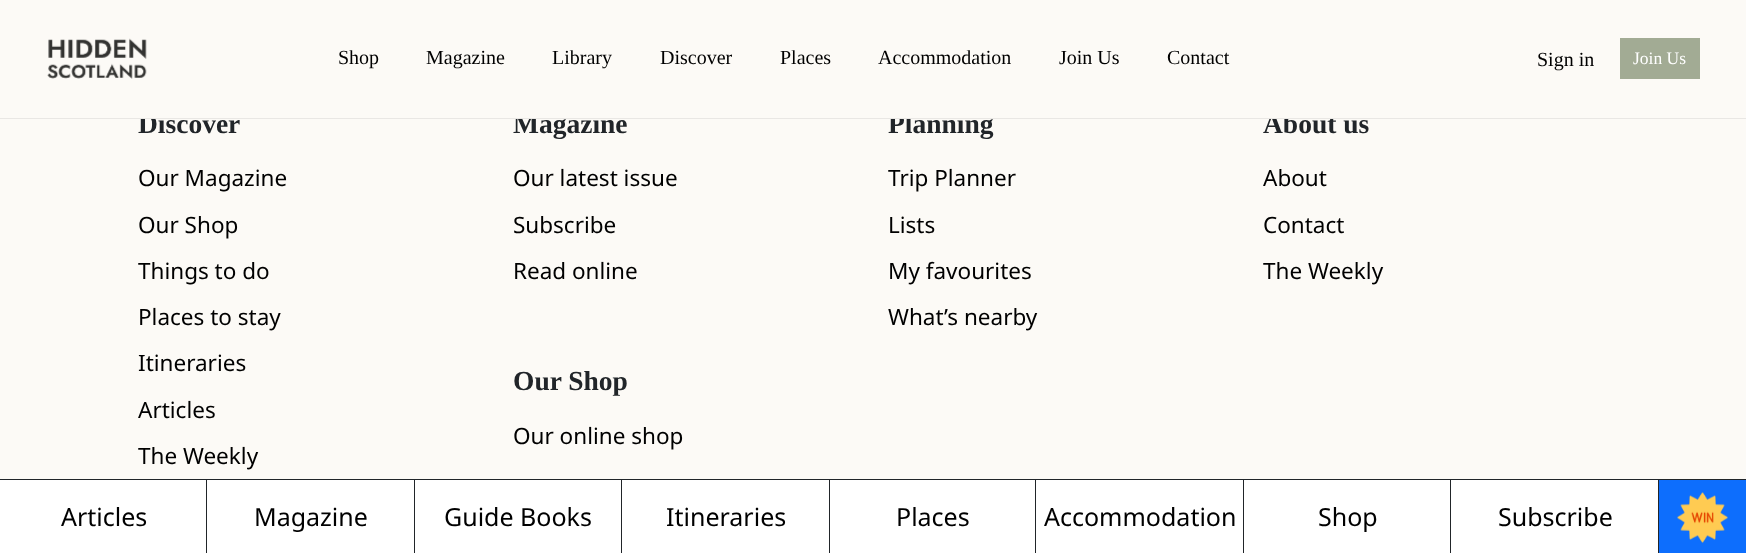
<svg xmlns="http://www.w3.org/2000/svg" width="1746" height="553">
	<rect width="100%" height="100%" fill="#FCFAF6" />
	<g font-family="Liberation Serif" font-size="27.5" font-weight="700" fill="#212529">
		<text x="138" y="133">Discover</text>
		<text x="513" y="133">Magazine</text>
		<text x="888" y="133">Planning</text>
		<text x="1263" y="133">About us</text>
	</g>
	<rect x="138" y="113" width="1196" height="5" fill="#FCFAF6" />
	<rect x="0" y="118" width="1746" height="1" fill="#E9E7E4" />
	<image x="47" y="38" width="100" height="41" href="assets/img1.png" />
	<g font-family="Liberation Serif" font-size="20" fill="#000000">
		<text x="338" y="64">Shop</text>
		<text x="426" y="64">Magazine</text>
		<text x="552" y="64">Library</text>
		<text x="660" y="64">Discover</text>
		<text x="780" y="64">Places</text>
		<text x="878" y="64">Accommodation</text>
		<text x="1059" y="64">Join Us</text>
		<text x="1167" y="64">Contact</text>
		<text x="1537" y="66">Sign in</text>
	</g>
	<rect x="1620" y="38" width="80" height="41" fill="#A2AB94" />
	<text x="1633" y="64" font-family="Liberation Serif" font-size="17.5" fill="#FFFFFF">Join Us</text>
	<g font-family="Noto Sans" font-size="22.5" fill="#000000">
		<text x="138" y="186">Our Magazine</text>
		<text x="138" y="233">Our Shop</text>
		<text x="138" y="279">Things to do</text>
		<text x="138" y="325">Places to stay</text>
		<text x="138" y="371">Itineraries</text>
		<text x="138" y="418">Articles</text>
		<text x="138" y="464">The Weekly</text>
		<text x="513" y="186">Our latest issue</text>
		<text x="513" y="233">Subscribe</text>
		<text x="513" y="279">Read online</text>
	</g>
	<text x="513" y="390" font-family="Liberation Serif" font-size="27.5" font-weight="700" fill="#212529">Our Shop</text>
	<g font-family="Noto Sans" font-size="22.5" fill="#000000">
		<text x="513" y="444">Our online shop</text>
		<text x="888" y="186">Trip Planner</text>
		<text x="888" y="233">Lists</text>
		<text x="888" y="279">My favourites</text>
		<text x="888" y="325">What’s nearby</text>
		<text x="1263" y="186">About</text>
		<text x="1263" y="233">Contact</text>
		<text x="1263" y="279">The Weekly</text>
	</g>
	<rect x="0" y="480" width="1658" height="73" fill="#FFFFFF" />
	<rect x="0" y="479" width="1746" height="1" fill="#212529" />
	<text x="61" y="526" font-family="Noto Sans" font-size="25" fill="#000000">Articles</text>
	<rect x="206" y="480" width="1" height="73" fill="#212529" />
	<text x="254" y="526" font-family="Noto Sans" font-size="25" fill="#000000">Magazine</text>
	<rect x="414" y="480" width="1" height="73" fill="#212529" />
	<text x="444" y="526" font-family="Noto Sans" font-size="25" fill="#000000">Guide Books</text>
	<rect x="621" y="480" width="1" height="73" fill="#212529" />
	<text x="666" y="526" font-family="Noto Sans" font-size="25" fill="#000000">Itineraries</text>
	<rect x="829" y="480" width="1" height="73" fill="#212529" />
	<text x="896" y="526" font-family="Noto Sans" font-size="25" fill="#000000">Places</text>
	<rect x="1035" y="480" width="1" height="73" fill="#212529" />
	<text x="1044" y="526" font-family="Noto Sans" font-size="25" fill="#000000">Accommodation</text>
	<rect x="1243" y="480" width="1" height="73" fill="#212529" />
	<text x="1318" y="526" font-family="Noto Sans" font-size="25" fill="#000000">Shop</text>
	<rect x="1450" y="480" width="1" height="73" fill="#212529" />
	<text x="1498" y="526" font-family="Noto Sans" font-size="25" fill="#000000">Subscribe</text>
	<rect x="1658" y="480" width="1" height="73" fill="#212529" />
	<rect x="1659" y="480" width="87" height="73" fill="#0D6EFD" />
	<image x="1677" y="492" width="51" height="51" href="assets/img2.png" />
</svg>
